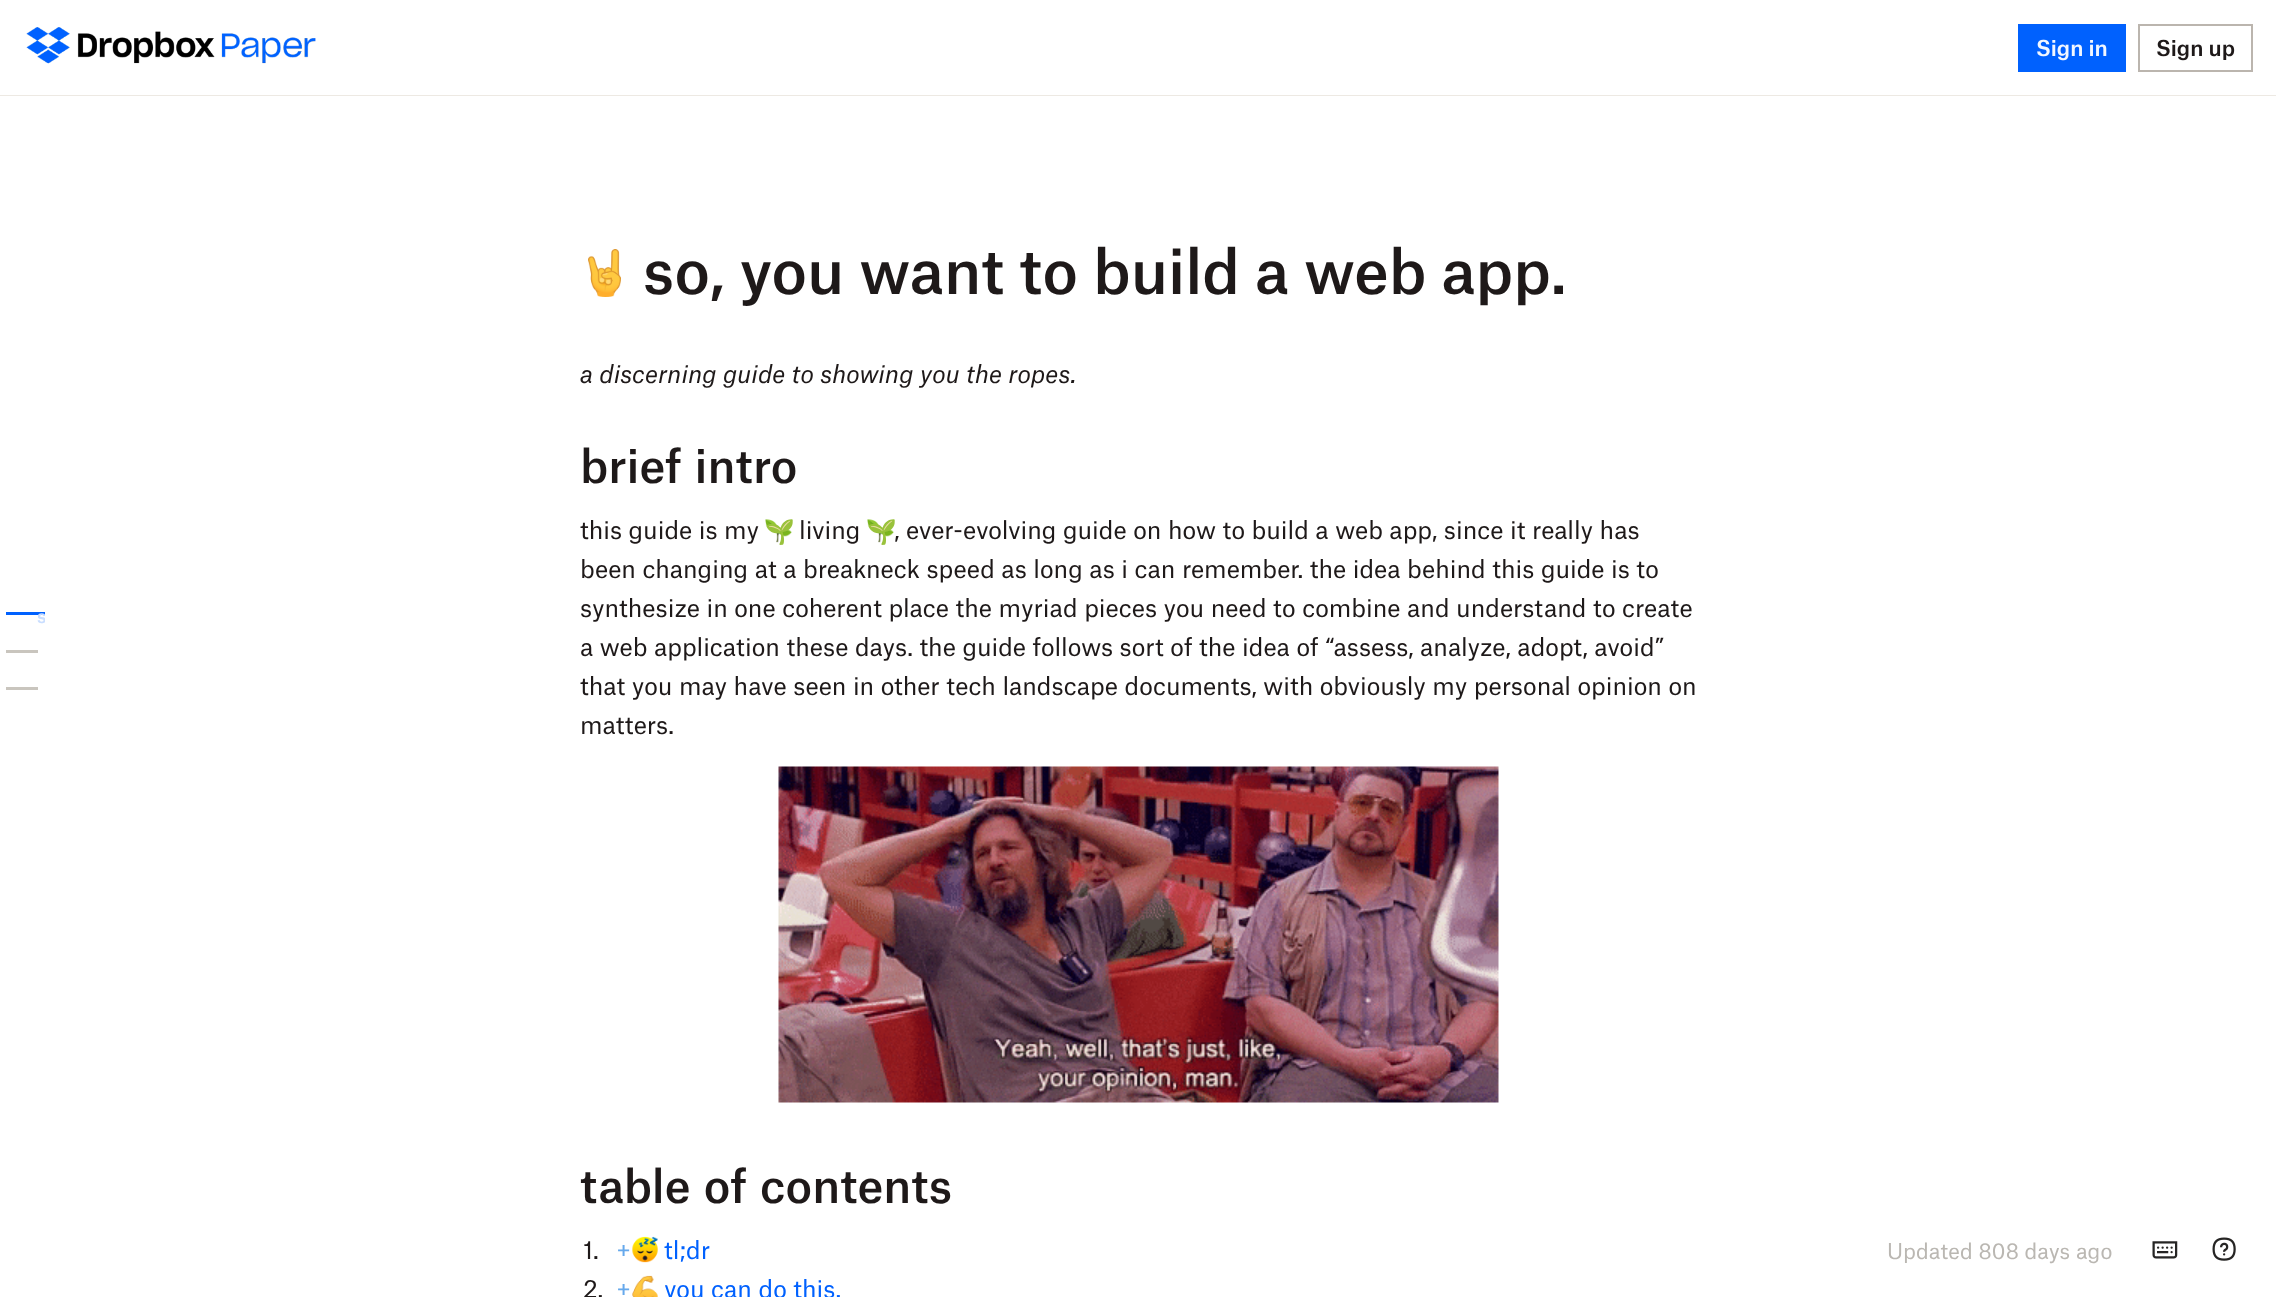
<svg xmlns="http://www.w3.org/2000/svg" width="2276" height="1297">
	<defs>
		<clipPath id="clip1"><rect x="9" y="605" width="36" height="24" /></clipPath>
	</defs>
	<rect width="100%" height="100%" fill="#FFFFFF" />
	<rect x="0" y="95" width="2276" height="1" fill="#EDE9E3" />
	<image x="26" y="27" width="290" height="37" href="assets/img1.png" />
	<rect x="2018" y="24" width="108" height="48" fill="#0061FE" />
	<text x="2036" y="56" font-family="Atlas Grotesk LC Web" font-size="21" font-weight="500" fill="#F2F7FF">Sign in</text>
	<rect x="2139" y="25" width="113" height="46" fill="none" stroke="#BBB5AE" stroke-width="2" />
	<text x="2156" y="56" font-family="Atlas Grotesk LC Web" font-size="21" font-weight="500" fill="#1E1919">Sign up</text>
	<rect x="6" y="612" width="39" height="3" fill="#0061FE" />
	<rect x="6" y="650" width="32" height="3" fill="#C9C5BE" />
	<rect x="6" y="687" width="32" height="3" fill="#C9C5BE" />
	<g clip-path="url(#clip1)">
		<text x="37" y="623" font-family="Atlas Grotesk LC Web" font-size="18" font-weight="500" fill="#CADEFF">s</text>
	</g>
	<image x="588" y="249" width="33" height="48" href="assets/img2.png" />
	<text x="643" y="294" font-family="Atlas Grotesk LC Web" font-size="60" font-weight="600" fill="#1E1919">so, you want to build a web app.</text>
	<text x="580" y="383" font-family="Atlas Grotesk LC Web" font-size="24" font-style="italic" fill="#1E1919">a discerning guide to showing you the ropes.</text>
	<text x="580" y="483" word-spacing="2" font-family="Atlas Grotesk LC Web" font-size="45" font-weight="600" fill="#1E1919">brief intro</text>
	<text x="580" y="539" font-family="Atlas Grotesk LC Web" font-size="24" fill="#1E1919">this guide is my</text>
	<image x="765" y="519" width="27" height="24" href="assets/img3.png" />
	<text x="765" y="540" font-family="Noto Color Emoji" font-size="24" fill="#E3EED0">🌱</text>
	<text x="799" y="539" font-family="Atlas Grotesk LC Web" font-size="24" fill="#1E1919">living</text>
	<image x="867" y="519" width="27" height="24" href="assets/img3.png" />
	<text x="867" y="540" font-family="Noto Color Emoji" font-size="24" fill="#E3EED0">🌱</text>
	<g font-family="Atlas Grotesk LC Web" font-size="24" fill="#1E1919">
		<text x="894" y="539">, ever-evolving guide on how to build a web app, since it really has</text>
		<text x="580" y="578">been changing at a breakneck speed as long as i can remember. the idea behind this guide is to</text>
		<text x="580" y="617">synthesize in one coherent place the myriad pieces you need to combine and understand to create</text>
		<text x="580" y="656">a web application these days. the guide follows sort of the idea of “assess, analyze, adopt, avoid”</text>
		<text x="580" y="695">that you may have seen in other tech landscape documents, with obviously my personal opinion on</text>
		<text x="580" y="734">matters.</text>
	</g>
	<image x="778" y="766" width="721" height="337" href="assets/img4.png" />
	<text x="580" y="1203" word-spacing="2" font-family="Atlas Grotesk LC Web" font-size="45" font-weight="600" fill="#1E1919">table of contents</text>
	<text x="583" y="1259" font-family="Atlas Grotesk LC Web" font-size="24" fill="#1E1919">1.</text>
	<text x="616" y="1259" font-family="Atlas Grotesk LC Web" font-size="24" fill="#66A9EC">+</text>
	<image x="632" y="1236" width="26" height="27" href="assets/img5.png" />
	<text x="664" y="1259" font-family="Atlas Grotesk LC Web" font-size="24" fill="#0061FE">tl;dr</text>
	<text x="583" y="1298" font-family="Atlas Grotesk LC Web" font-size="24" fill="#1E1919">2.</text>
	<text x="616" y="1298" font-family="Atlas Grotesk LC Web" font-size="24" fill="#66A9EC">+</text>
	<image x="632" y="1275" width="26" height="22" href="assets/img6.png" />
	<text x="664" y="1298" font-family="Atlas Grotesk LC Web" font-size="24" fill="#0061FE">you can do this.</text>
	<text x="1887" y="1259" font-family="Atlas Grotesk LC Web" font-size="21" fill="#BAB7B2">Updated 808 days ago</text>
	<image x="2152" y="1241" width="26" height="18" href="assets/img7.png" />
	<image x="2212" y="1237" width="24" height="24" href="assets/img8.png" />
</svg>
